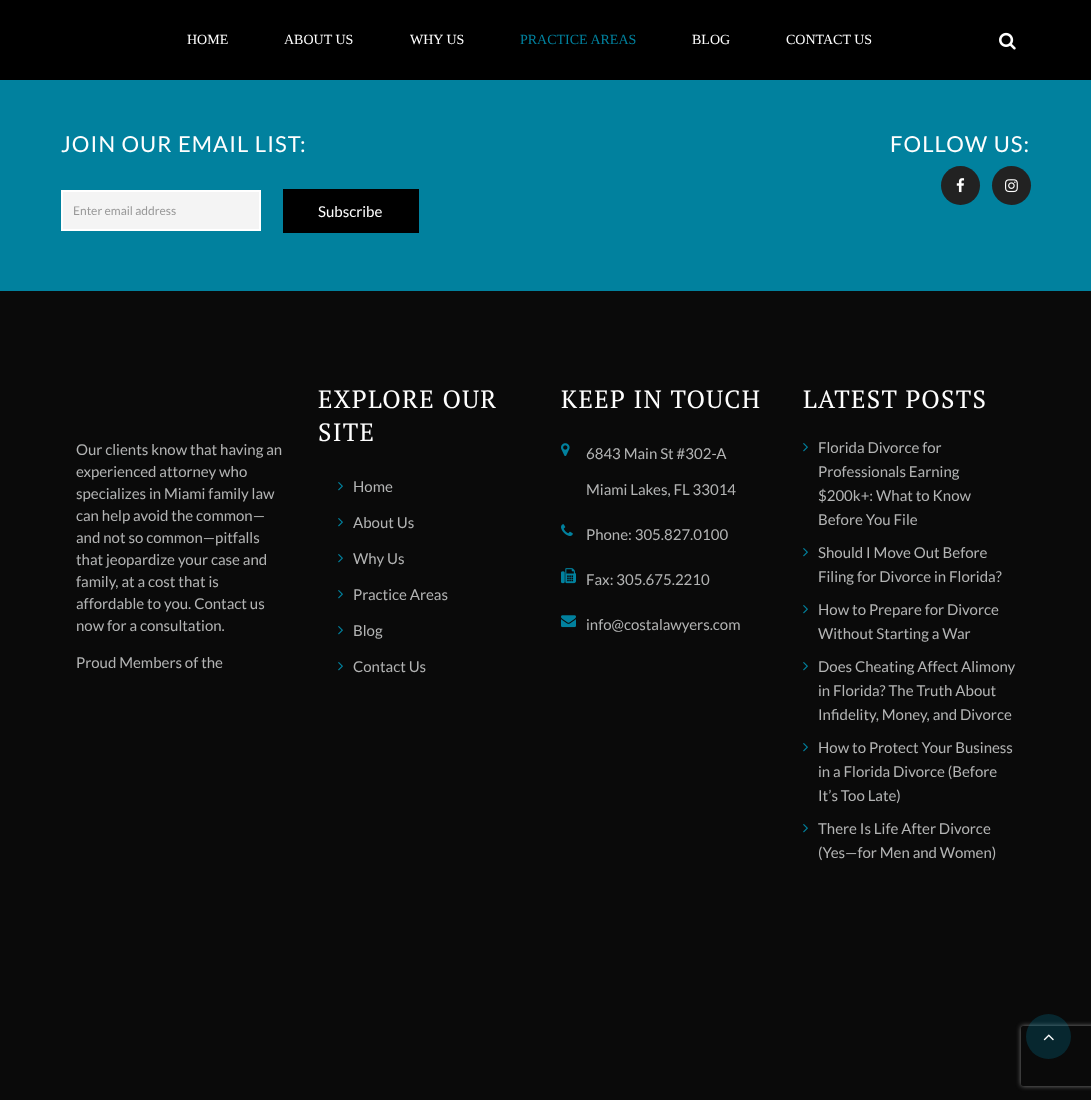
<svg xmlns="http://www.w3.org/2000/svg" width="1091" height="1100">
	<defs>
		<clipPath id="clip1"><path d="M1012 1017H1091V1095H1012ZM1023 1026H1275C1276 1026 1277 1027 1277 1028V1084C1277 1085 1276 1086 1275 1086H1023C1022 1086 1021 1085 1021 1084V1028C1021 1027 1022 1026 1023 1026Z" clip-rule="evenodd" /></clipPath>
	</defs>
	<rect width="100%" height="100%" fill="#01819E" />
	<rect x="0" y="0" width="1091" height="80" fill="#000000" />
	<g font-family="Liberation Serif" font-size="14" fill="#FEFEFE">
		<text x="187" y="44">HOME</text>
		<text x="284" y="44">ABOUT US</text>
		<text x="410" y="44">WHY US</text>
	</g>
	<text x="520" y="44" font-family="Liberation Serif" font-size="14" fill="#01819E">PRACTICE AREAS</text>
	<g font-family="Liberation Serif" font-size="14" fill="#FEFEFE">
		<text x="692" y="44">BLOG</text>
		<text x="786" y="44">CONTACT US</text>
	</g>
	<image x="999" y="32" width="17" height="18" href="assets/img1.png" />
	<text x="61" y="152" font-family="Lato" font-size="22" letter-spacing="1.1" fill="#FEFEFE">JOIN OUR EMAIL LIST:</text>
	<rect x="62" y="191" width="198" height="39" fill="#F4F4F4" stroke="#FFFFFF" stroke-width="2" />
	<text x="73" y="215" font-family="Lato" font-size="12" fill="#999999">Enter email address</text>
	<rect x="283" y="189" width="136" height="44" fill="#000000" />
	<text x="318" y="217" font-family="Lato" font-size="15" fill="#FEFEFE">Subscribe</text>
	<text x="890" y="152" font-family="Lato" font-size="22" letter-spacing="1.1" fill="#FEFEFE">FOLLOW US:</text>
	<circle cx="960.5" cy="185.5" r="19.5" fill="#222222" />
	<image x="956" y="178" width="9" height="15" href="assets/img2.png" />
	<circle cx="1011.5" cy="185.5" r="19.5" fill="#222222" />
	<image x="1005" y="179" width="13" height="14" href="assets/img3.png" />
	<rect x="0" y="291" width="1091" height="809" fill="#0A0A0A" />
	<g font-family="Lato" font-size="15" fill="#B3B4B4">
		<text x="76" y="455">Our clients know that having an</text>
		<text x="76" y="477">experienced attorney who</text>
		<text x="76" y="499">specializes in Miami family law</text>
		<text x="76" y="521">can help avoid the common—</text>
		<text x="76" y="543">and not so common—pitfalls</text>
		<text x="76" y="565">that jeopardize your case and</text>
		<text x="76" y="587">family, at a cost that is</text>
		<text x="76" y="609">affordable to you. Contact us</text>
		<text x="76" y="631">now for a consultation.</text>
		<text x="76" y="668">Proud Members of the</text>
	</g>
	<g font-family="PT Serif" font-size="25" letter-spacing="1.25" fill="#FEFEFE">
		<text x="318" y="408">EXPLORE OUR</text>
		<text x="318" y="441">SITE</text>
	</g>
	<image x="338" y="482" width="5" height="9" href="assets/img4.png" />
	<text x="353" y="492" font-family="Lato" font-size="15" fill="#B3B4B4">Home</text>
	<image x="338" y="518" width="5" height="9" href="assets/img4.png" />
	<text x="353" y="528" font-family="Lato" font-size="15" fill="#B3B4B4">About Us</text>
	<image x="338" y="554" width="5" height="9" href="assets/img4.png" />
	<text x="353" y="564" font-family="Lato" font-size="15" fill="#B3B4B4">Why Us</text>
	<image x="338" y="590" width="5" height="9" href="assets/img4.png" />
	<text x="353" y="600" font-family="Lato" font-size="15" fill="#B3B4B4">Practice Areas</text>
	<image x="338" y="626" width="5" height="9" href="assets/img4.png" />
	<text x="353" y="636" font-family="Lato" font-size="15" fill="#B3B4B4">Blog</text>
	<image x="338" y="662" width="5" height="9" href="assets/img4.png" />
	<text x="353" y="672" font-family="Lato" font-size="15" fill="#B3B4B4">Contact Us</text>
	<text x="561" y="408" font-family="PT Serif" font-size="25" letter-spacing="1.25" fill="#FEFEFE">KEEP IN TOUCH</text>
	<image x="561" y="443" width="9" height="13" href="assets/img5.png" />
	<g font-family="Lato" font-size="15" fill="#B3B4B4">
		<text x="586" y="459">6843 Main St #302-A</text>
		<text x="586" y="495">Miami Lakes, FL 33014</text>
	</g>
	<image x="561" y="524" width="12" height="12" href="assets/img6.png" />
	<text x="586" y="540" font-family="Lato" font-size="15" fill="#B3B4B4">Phone: 305.827.0100</text>
	<image x="561" y="568" width="15" height="16" href="assets/img7.png" />
	<text x="586" y="585" font-family="Lato" font-size="15" fill="#B3B4B4">Fax: 305.675.2210</text>
	<image x="561" y="615" width="15" height="13" href="assets/img8.png" />
	<text x="586" y="630" font-family="Lato" font-size="15" fill="#B3B4B4">info@costalawyers.com</text>
	<text x="803" y="408" font-family="PT Serif" font-size="25" letter-spacing="1.25" fill="#FEFEFE">LATEST POSTS</text>
	<image x="803" y="443" width="5" height="9" href="assets/img4.png" />
	<g font-family="Lato" font-size="15" fill="#B3B4B4">
		<text x="818" y="453">Florida Divorce for</text>
		<text x="818" y="477">Professionals Earning</text>
		<text x="818" y="501">$200k+: What to Know</text>
		<text x="818" y="525">Before You File</text>
	</g>
	<image x="803" y="548" width="5" height="9" href="assets/img4.png" />
	<g font-family="Lato" font-size="15" fill="#B3B4B4">
		<text x="818" y="558">Should I Move Out Before</text>
		<text x="818" y="582">Filing for Divorce in Florida?</text>
	</g>
	<image x="803" y="605" width="5" height="9" href="assets/img4.png" />
	<g font-family="Lato" font-size="15" fill="#B3B4B4">
		<text x="818" y="615">How to Prepare for Divorce</text>
		<text x="818" y="639">Without Starting a War</text>
	</g>
	<image x="803" y="662" width="5" height="9" href="assets/img4.png" />
	<g font-family="Lato" font-size="15" fill="#B3B4B4">
		<text x="818" y="672">Does Cheating Affect Alimony</text>
		<text x="818" y="696">in Florida? The Truth About</text>
		<text x="818" y="720">Infidelity, Money, and Divorce</text>
	</g>
	<image x="803" y="743" width="5" height="9" href="assets/img4.png" />
	<g font-family="Lato" font-size="15" fill="#B3B4B4">
		<text x="818" y="753">How to Protect Your Business</text>
		<text x="818" y="777">in a Florida Divorce (Before</text>
		<text x="818" y="801">It’s Too Late)</text>
	</g>
	<image x="803" y="824" width="5" height="9" href="assets/img4.png" />
	<g font-family="Lato" font-size="15" fill="#B3B4B4">
		<text x="818" y="834">There Is Life After Divorce</text>
		<text x="818" y="858">(Yes—for Men and Women)</text>
	</g>
	<g clip-path="url(#clip1)">
		<rect x="1021" y="1026" width="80" height="60" rx="2" fill="#808080" filter="blur(2.5px)" />
	</g>
	<circle cx="1048.5" cy="1036.5" r="22.5" fill="#01819E" fill-opacity="0.25" />
	<image x="1043" y="1034" width="11" height="7" href="assets/img9.png" />
</svg>
